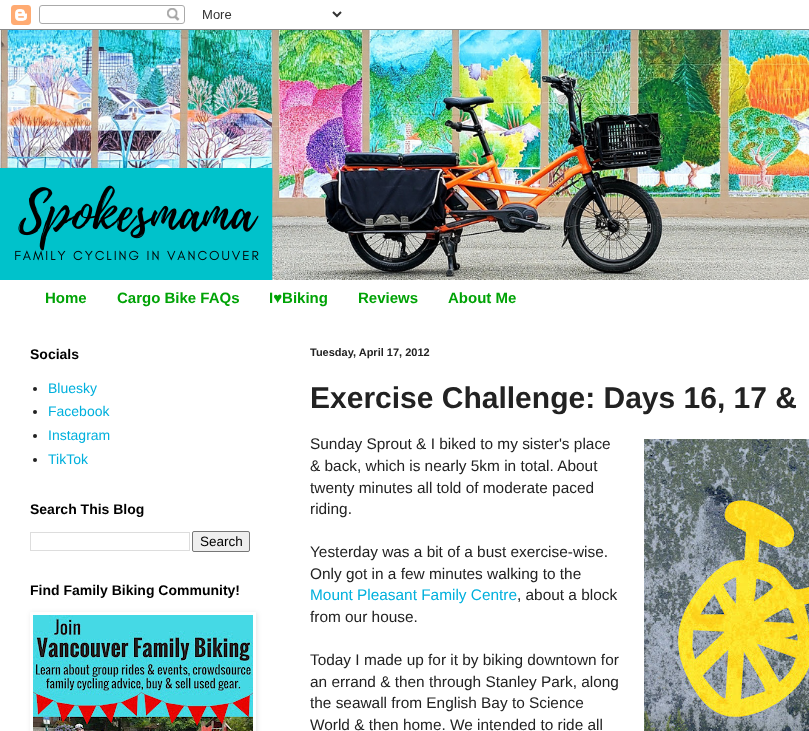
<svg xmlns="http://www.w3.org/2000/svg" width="809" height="731">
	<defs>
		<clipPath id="clip1"><path d="M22 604H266V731H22ZM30 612H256V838H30Z" clip-rule="evenodd" /></clipPath>
	</defs>
	<rect width="100%" height="100%" fill="#FFFFFF" />
	<image x="0" y="5" width="809" height="25" href="assets/img1.png" />
	<image x="0" y="30" width="809" height="250" href="assets/img2.png" />
	<g font-family="Liberation Sans" font-size="15" font-weight="700" fill="#00A306">
		<text x="45" y="303">Home</text>
		<text x="117" y="303">Cargo Bike FAQs</text>
		<text x="269" y="303">I♥Biking</text>
		<text x="358" y="303">Reviews</text>
		<text x="448" y="303">About Me</text>
	</g>
	<text x="30" y="359" font-family="Liberation Sans" font-size="14" font-weight="700" fill="#000000">Socials</text>
	<circle cx="35" cy="389" r="2" fill="#222222" />
	<text x="48" y="393" font-family="Liberation Sans" font-size="14" fill="#00B0DD">Bluesky</text>
	<circle cx="35" cy="412" r="2" fill="#222222" />
	<text x="48" y="416" font-family="Liberation Sans" font-size="14" fill="#00B0DD">Facebook</text>
	<circle cx="35" cy="436" r="2" fill="#222222" />
	<text x="48" y="440" font-family="Liberation Sans" font-size="14" fill="#00B0DD">Instagram</text>
	<circle cx="35" cy="460" r="2" fill="#222222" />
	<text x="48" y="464" font-family="Liberation Sans" font-size="14" fill="#00B0DD">TikTok</text>
	<text x="30" y="514" font-family="Liberation Sans" font-size="14" font-weight="700" fill="#000000">Search This Blog</text>
	<rect x="30.5" y="532.5" width="159" height="18" fill="none" stroke="#DDDDDD" />
	<rect x="192.5" y="531.5" width="57" height="20" rx="1.5" fill="#EFEFEF" stroke="#767676" />
	<text x="200" y="546" font-family="Liberation Sans" font-size="13.5" fill="#000000">Search</text>
	<text x="30" y="595" font-family="Liberation Sans" font-size="14" font-weight="700" fill="#000000">Find Family Biking Community!</text>
	<g clip-path="url(#clip1)">
		<rect x="31" y="613" width="226" height="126" fill="#000000" fill-opacity="0.1" filter="blur(2.5px)" />
	</g>
	<image x="33" y="615" width="220" height="116" href="assets/img3.png" />
	<text x="310" y="356" font-family="Liberation Sans" font-size="11" font-weight="700" fill="#222222">Tuesday, April 17, 2012</text>
	<text x="310" y="408" font-family="Liberation Sans" font-size="30" font-weight="700" fill="#222222">Exercise Challenge: Days 16, 17 &amp;</text>
	<text x="310" y="449" font-family="Liberation Sans" font-size="15.4" fill="#222222">Sunday Sprout &amp; I biked to my sister's place</text>
	<image x="644" y="439" width="165" height="292" href="assets/img4.png" />
	<g font-family="Liberation Sans" font-size="15.4" fill="#222222">
		<text x="310" y="471">&amp; back, which is nearly 5km in total. About</text>
		<text x="310" y="493">twenty minutes all told of moderate paced</text>
		<text x="310" y="514">riding.</text>
		<text x="310" y="557">Yesterday was a bit of a bust exercise-wise.</text>
		<text x="310" y="579">Only got in a few minutes walking to the</text>
	</g>
	<text x="310" y="600" font-family="Liberation Sans" font-size="15.4" fill="#00B0DD">Mount Pleasant Family Centre</text>
	<g font-family="Liberation Sans" font-size="15.4" fill="#222222">
		<text x="517" y="600">, about a block</text>
		<text x="310" y="622">from our house.</text>
		<text x="310" y="665">Today I made up for it by biking downtown for</text>
		<text x="310" y="687">an errand &amp; then through Stanley Park, along</text>
		<text x="310" y="708">the seawall from English Bay to Science</text>
		<text x="310" y="730">World &amp; then home. We intended to ride all</text>
	</g>
</svg>
